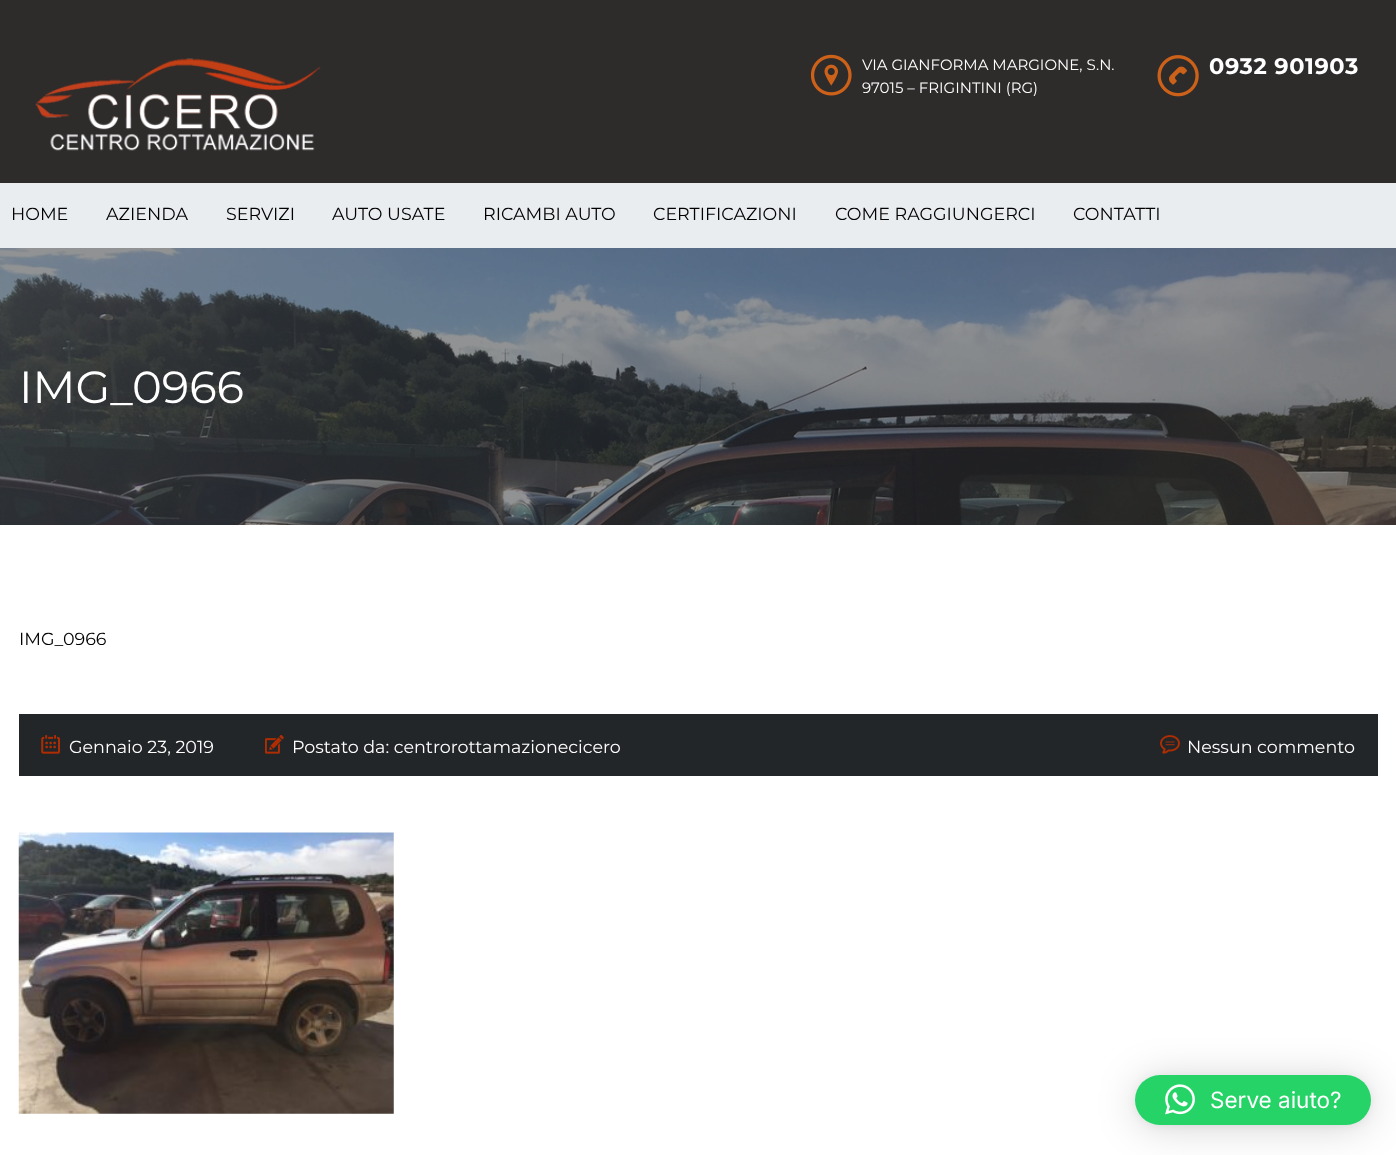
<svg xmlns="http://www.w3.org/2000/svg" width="1396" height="1155">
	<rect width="100%" height="100%" fill="#FFFFFF" />
	<rect x="0" y="0" width="1396" height="183" fill="#2E2B2B" />
	<image x="35" y="58" width="286" height="93" href="assets/img1.png" />
	<image x="810" y="54" width="42" height="42" href="assets/img2.png" />
	<g font-family="Montserrat" font-size="15" fill="#FFFFFF">
		<text x="862" y="70">VIA GIANFORMA MARGIONE, S.N.</text>
		<text x="862" y="93">97015 – FRIGINTINI (RG)</text>
	</g>
	<image x="1157" y="55" width="42" height="42" href="assets/img3.png" />
	<text x="1209" y="74" font-family="Montserrat" font-size="22.5" font-weight="700" letter-spacing="0.6" fill="#FFFFFF">0932 901903</text>
	<rect x="0" y="183" width="1396" height="65" fill="#EAEDF0" />
	<g font-family="Montserrat" font-size="17.5" fill="#000000">
		<text x="11" y="220">HOME</text>
		<text x="106" y="220">AZIENDA</text>
		<text x="226" y="220">SERVIZI</text>
		<text x="332" y="220">AUTO USATE</text>
		<text x="483" y="220">RICAMBI AUTO</text>
		<text x="653" y="220">CERTIFICAZIONI</text>
		<text x="835" y="220">COME RAGGIUNGERCI</text>
		<text x="1073" y="220">CONTATTI</text>
	</g>
	<image x="0" y="248" width="1396" height="277" href="assets/img4.png" />
	<text x="19" y="403" font-family="Montserrat" font-size="45" fill="#FFFFFF">IMG_0966</text>
	<text x="19" y="645" font-family="Montserrat" font-size="17.5" fill="#000000">IMG_0966</text>
	<rect x="19" y="714" width="1359" height="62" fill="#232628" />
	<image x="41" y="735" width="19" height="19" href="assets/img5.png" />
	<text x="69" y="753" font-family="Montserrat" font-size="17.5" fill="#FFFFFF">Gennaio 23, 2019</text>
	<image x="265" y="735" width="19" height="19" href="assets/img6.png" />
	<text x="292" y="753" font-family="Montserrat" font-size="17.5" fill="#FFFFFF">Postato da: centrorottamazionecicero</text>
	<image x="1160" y="735" width="20" height="19" href="assets/img7.png" />
	<text x="1187" y="753" font-family="Montserrat" font-size="17.5" fill="#FFFFFF">Nessun commento</text>
	<image x="18" y="832" width="376" height="282" href="assets/img8.png" />
	<rect x="1135" y="1078" width="236" height="50" rx="25" fill="#000000" fill-opacity="0.16" filter="blur(20px)" />
	<rect x="1135" y="1076" width="236" height="50" rx="25" fill="#000000" fill-opacity="0.06" filter="blur(4px)" />
	<rect x="1135" y="1075" width="236" height="50" rx="25" fill="#25D366" />
	<image x="1165" y="1084" width="30" height="31" href="assets/img9.png" />
	<text x="1210" y="1108" font-family="Inter" font-size="22.5" fill="#FFFFFF">Serve aiuto?</text>
</svg>
